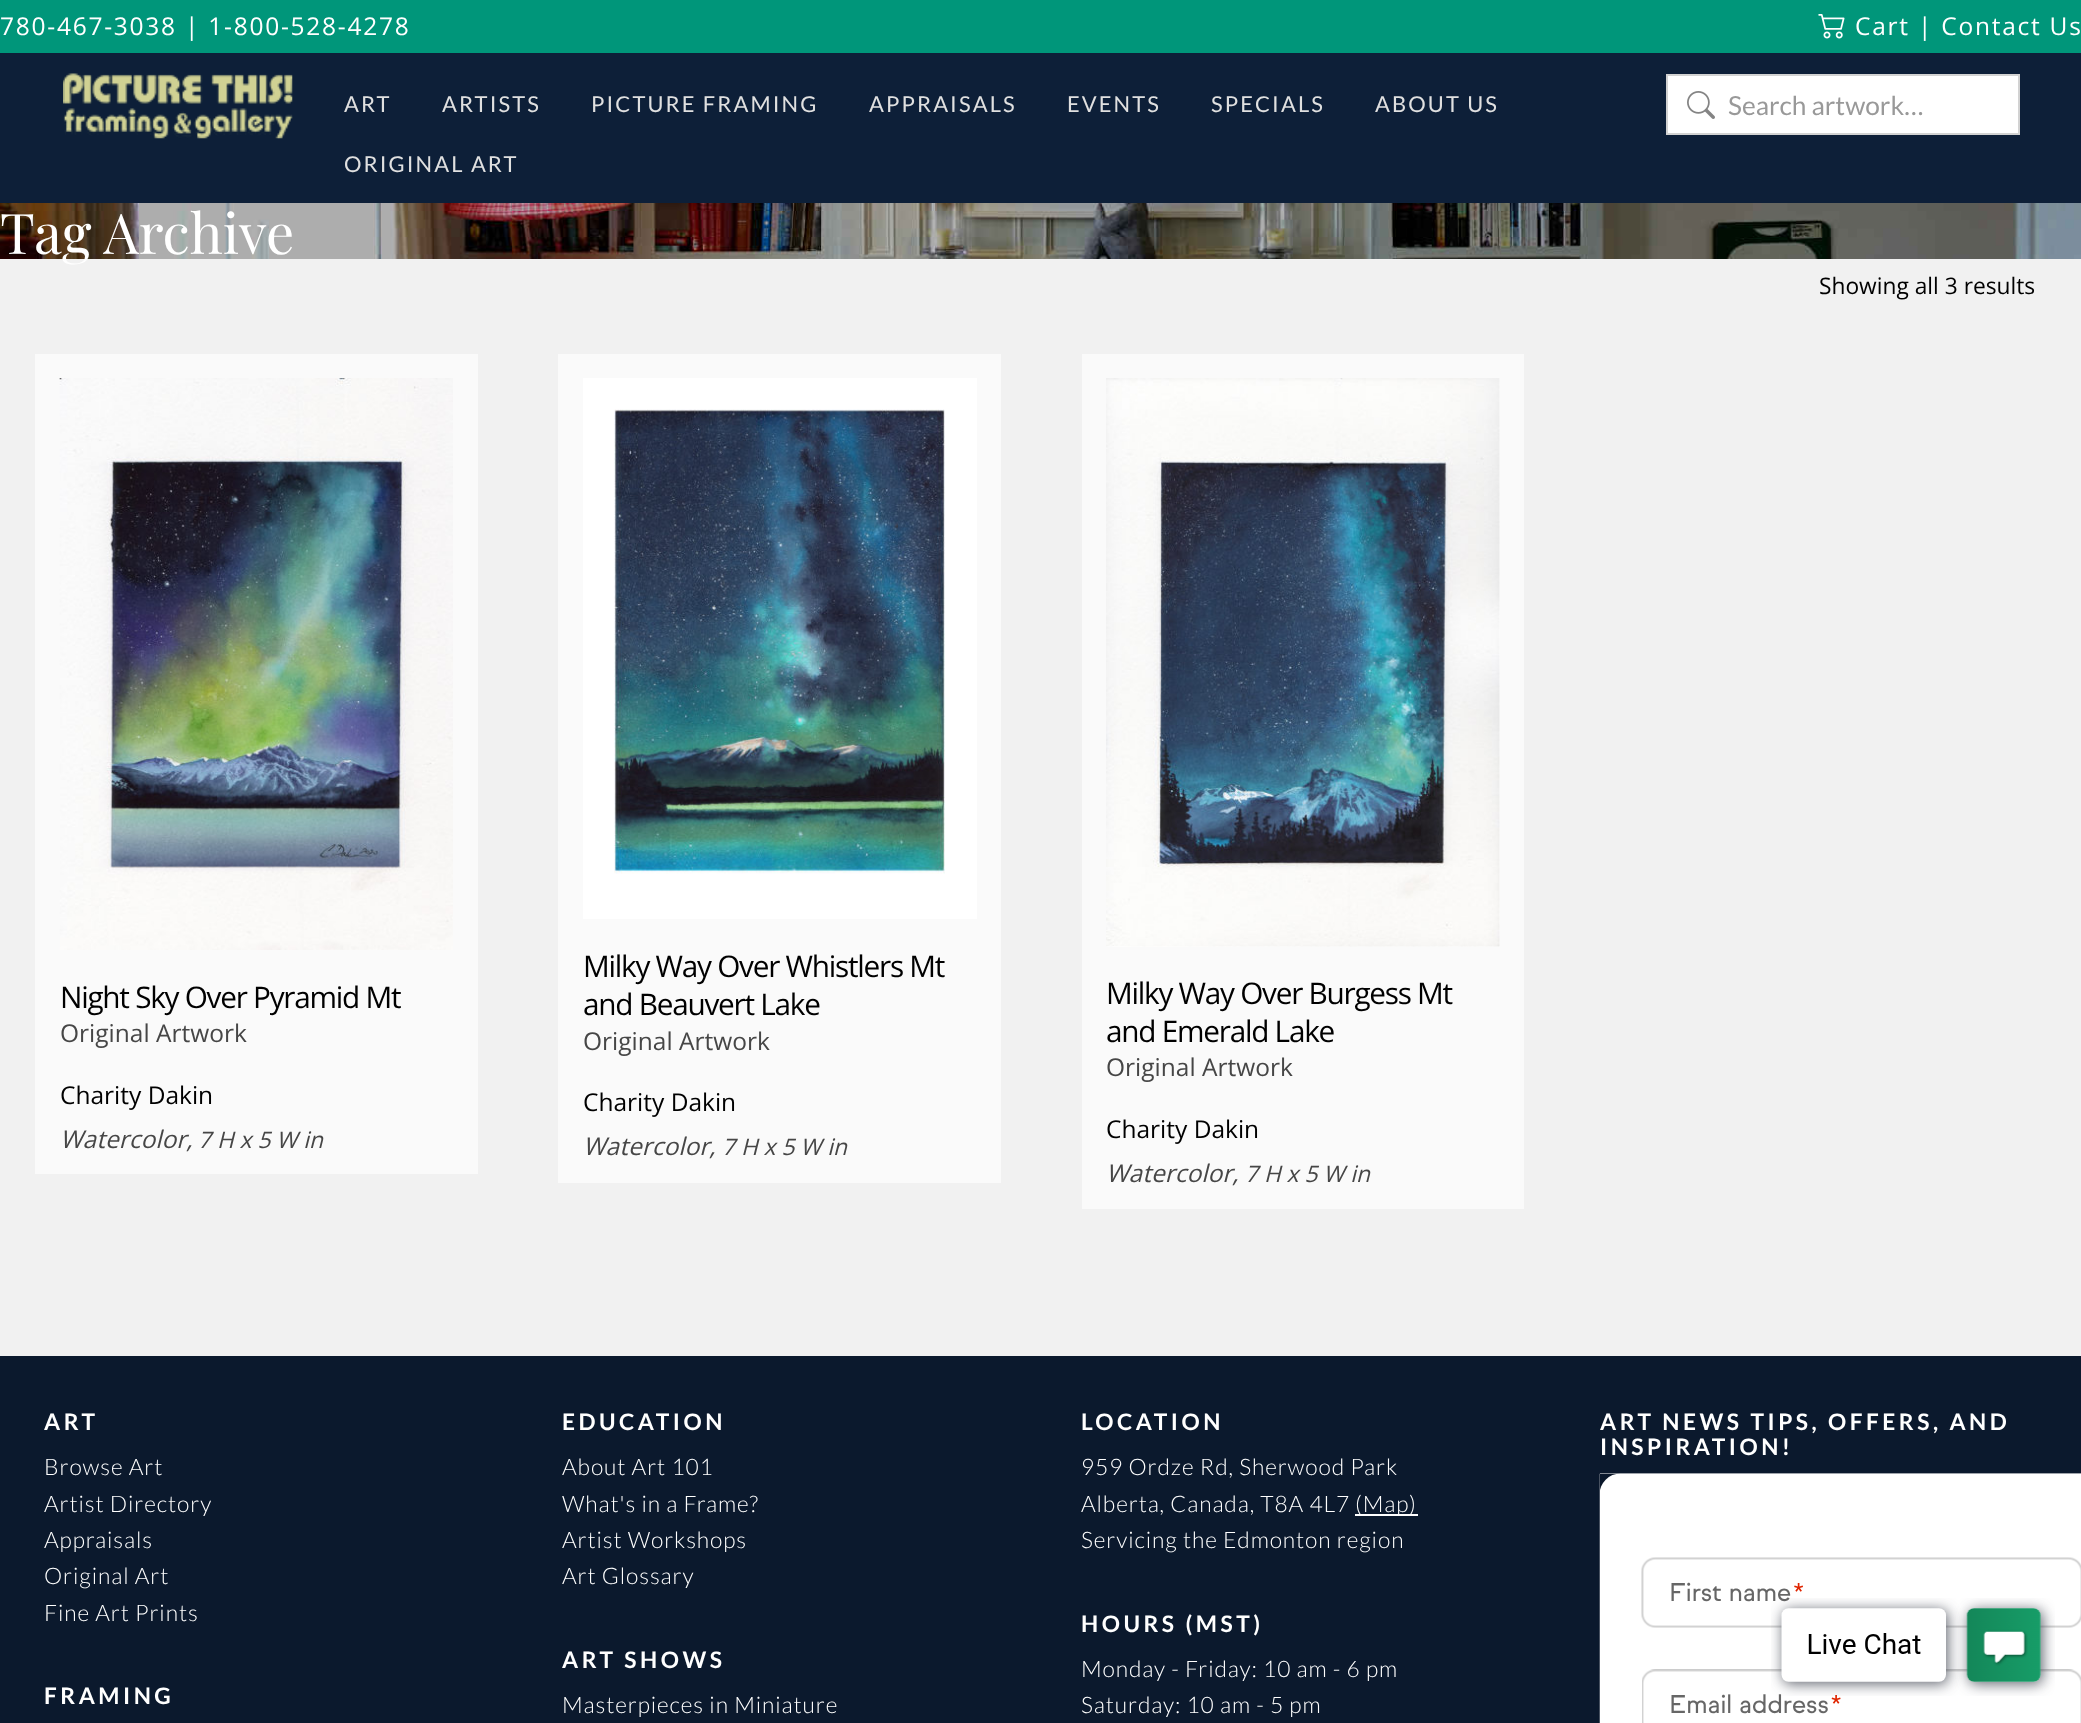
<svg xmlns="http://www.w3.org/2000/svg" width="2081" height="1723">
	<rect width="100%" height="100%" fill="#F1F1F1" />
	<rect x="0" y="0" width="2081" height="53" fill="#00967A" />
	<text x="0" y="35" font-family="Open Sans" font-size="24.5" letter-spacing="1.75" fill="#FFFFFF">780-467-3038 | 1-800-528-4278</text>
	<image x="1818" y="14" width="27" height="25" href="assets/img1.png" />
	<text x="1855" y="35" font-family="Open Sans" font-size="24.5" letter-spacing="1.75" fill="#FFFFFF">Cart | Contact Us</text>
	<rect x="0" y="53" width="2081" height="150" fill="#0D1F38" />
	<image x="63" y="73" width="230" height="66" href="assets/img2.png" />
	<g font-family="Lato" font-size="21.9" letter-spacing="2.1" fill="#E0E0E0">
		<text x="344" y="112">ART</text>
		<text x="442" y="112">ARTISTS</text>
		<text x="591" y="112">PICTURE FRAMING</text>
		<text x="869" y="112">APPRAISALS</text>
		<text x="1067" y="112">EVENTS</text>
		<text x="1211" y="112">SPECIALS</text>
		<text x="1375" y="112">ABOUT US</text>
		<text x="344" y="172">ORIGINAL ART</text>
	</g>
	<rect x="1667" y="75" width="352" height="59" fill="#FFFFFF" stroke="#D2D2D2" stroke-width="2" />
	<image x="1687" y="91" width="28" height="28" href="assets/img3.png" />
	<text x="1728" y="115" font-family="Lato" font-size="26.25" fill="#999999">Search artwork…</text>
	<image x="0" y="203" width="2081" height="56" href="assets/img4.png" />
	<text x="0" y="254" font-family="Playfair Display" font-size="56" fill="#FFFFFF">Tag Archive</text>
	<text x="1819" y="294" font-family="Open Sans" font-size="22.75" fill="#000000">Showing all 3 results</text>
	<rect x="35" y="354" width="443" height="820" fill="#FAFAFA" />
	<image x="59" y="378" width="394" height="572" href="assets/img5.png" />
	<text x="60" y="1008" font-family="Open Sans" font-size="29.75" letter-spacing="-1.25" fill="#000000">Night Sky Over Pyramid Mt</text>
	<text x="60" y="1042" font-family="Open Sans" font-size="24.5" fill="#464646">Original Artwork</text>
	<text x="60" y="1104" font-family="Open Sans" font-size="24.5" fill="#000000">Charity Dakin</text>
	<text x="60" y="1148" font-family="Open Sans" font-size="24.5" font-style="italic" fill="#464646">Watercolor,</text>
	<text x="198" y="1148" font-family="Open Sans" font-size="22.75" font-style="italic" fill="#464646">7 H x 5 W in</text>
	<rect x="558" y="354" width="443" height="829" fill="#FAFAFA" />
	<rect x="583" y="378" width="394" height="541" fill="#FFFFFF" />
	<image x="614" y="409" width="331" height="465" href="assets/img6.png" />
	<g font-family="Open Sans" font-size="29.75" letter-spacing="-1.25" fill="#000000">
		<text x="583" y="977">Milky Way Over Whistlers Mt</text>
		<text x="583" y="1015">and Beauvert Lake</text>
	</g>
	<text x="583" y="1050" font-family="Open Sans" font-size="24.5" fill="#464646">Original Artwork</text>
	<text x="583" y="1111" font-family="Open Sans" font-size="24.5" fill="#000000">Charity Dakin</text>
	<text x="583" y="1155" font-family="Open Sans" font-size="24.5" font-style="italic" fill="#464646">Watercolor,</text>
	<text x="722" y="1155" font-family="Open Sans" font-size="22.75" font-style="italic" fill="#464646">7 H x 5 W in</text>
	<rect x="1082" y="354" width="442" height="855" fill="#FAFAFA" />
	<rect x="1106" y="378" width="394" height="569" fill="#FFFFFF" />
	<image x="1106" y="378" width="394" height="569" href="assets/img7.png" />
	<g font-family="Open Sans" font-size="29.75" letter-spacing="-1.25" fill="#000000">
		<text x="1106" y="1004">Milky Way Over Burgess Mt</text>
		<text x="1106" y="1042">and Emerald Lake</text>
	</g>
	<text x="1106" y="1076" font-family="Open Sans" font-size="24.5" fill="#464646">Original Artwork</text>
	<text x="1106" y="1138" font-family="Open Sans" font-size="24.5" fill="#000000">Charity Dakin</text>
	<text x="1106" y="1182" font-family="Open Sans" font-size="24.5" font-style="italic" fill="#464646">Watercolor,</text>
	<text x="1245" y="1182" font-family="Open Sans" font-size="22.75" font-style="italic" fill="#464646">7 H x 5 W in</text>
	<rect x="0" y="1356" width="2081" height="367" fill="#0B192D" />
	<text x="44" y="1430" font-family="Lato" font-size="22.75" font-weight="700" letter-spacing="3.5" fill="#FFFFFF">ART</text>
	<g font-family="Lato" font-size="22.75" font-weight="300" letter-spacing="0.9" fill="#FFFFFF">
		<text x="44" y="1475">Browse Art</text>
		<text x="44" y="1512">Artist Directory</text>
		<text x="44" y="1548">Appraisals</text>
		<text x="44" y="1584">Original Art</text>
		<text x="44" y="1621">Fine Art Prints</text>
	</g>
	<g font-family="Lato" font-size="22.75" font-weight="700" letter-spacing="3.5" fill="#FFFFFF">
		<text x="44" y="1704">FRAMING</text>
		<text x="562" y="1430">EDUCATION</text>
	</g>
	<g font-family="Lato" font-size="22.75" font-weight="300" letter-spacing="0.9" fill="#FFFFFF">
		<text x="562" y="1475">About Art 101</text>
		<text x="562" y="1512">What's in a Frame?</text>
		<text x="562" y="1548">Artist Workshops</text>
		<text x="562" y="1584">Art Glossary</text>
	</g>
	<text x="562" y="1668" font-family="Lato" font-size="22.75" font-weight="700" letter-spacing="3.5" fill="#FFFFFF">ART SHOWS</text>
	<text x="562" y="1713" font-family="Lato" font-size="22.75" font-weight="300" letter-spacing="0.9" fill="#FFFFFF">Masterpieces in Miniature</text>
	<text x="1081" y="1430" font-family="Lato" font-size="22.75" font-weight="700" letter-spacing="3.5" fill="#FFFFFF">LOCATION</text>
	<g font-family="Lato" font-size="22.75" font-weight="300" letter-spacing="0.9" fill="#FFFFFF">
		<text x="1081" y="1475">959 Ordze Rd, Sherwood Park</text>
		<text x="1081" y="1512">Alberta, Canada, T8A 4L7</text>
	</g>
	<rect x="1355" y="1514" width="63" height="2" fill="#FFFFFF" />
	<g font-family="Lato" font-size="22.75" font-weight="300" letter-spacing="0.9" fill="#FFFFFF">
		<text x="1355" y="1512">(Map)</text>
		<text x="1081" y="1548">Servicing the Edmonton region</text>
	</g>
	<text x="1081" y="1632" font-family="Lato" font-size="22.75" font-weight="700" letter-spacing="3.5" fill="#FFFFFF">HOURS (MST)</text>
	<g font-family="Lato" font-size="22.75" font-weight="300" letter-spacing="0.9" fill="#FFFFFF">
		<text x="1081" y="1677">Monday - Friday: 10 am - 6 pm</text>
		<text x="1081" y="1713">Saturday: 10 am - 5 pm</text>
	</g>
	<g font-family="Lato" font-size="22.75" font-weight="700" letter-spacing="3.5" fill="#FFFFFF">
		<text x="1600" y="1430">ART NEWS TIPS, OFFERS, AND</text>
		<text x="1600" y="1455">INSPIRATION!</text>
	</g>
	<image x="1599" y="1473" width="482" height="250" href="assets/img8.png" />
	<image x="1771" y="1598" width="284" height="98" href="assets/img9.png" />
</svg>
